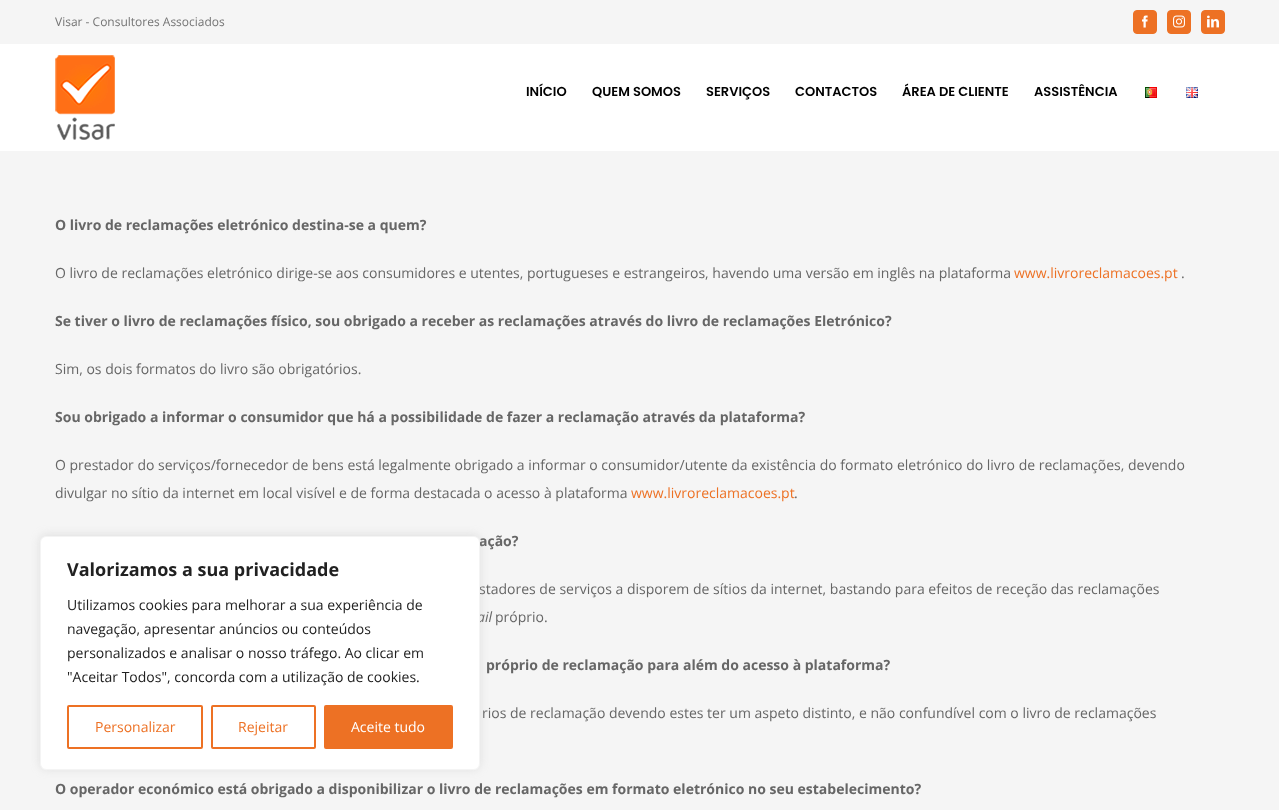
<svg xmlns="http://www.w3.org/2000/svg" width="1279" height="810">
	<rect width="100%" height="100%" fill="#F5F5F5" />
	<rect x="0" y="44" width="1279" height="107" fill="#FFFFFF" />
	<text x="55" y="26" font-family="Open Sans" font-size="12" fill="#747474">Visar - Consultores Associados</text>
	<rect x="1133.5" y="10.5" width="23" height="23" rx="3.5" fill="#ED7124" stroke="#ED7124" />
	<image x="1142" y="15" width="6" height="13" href="assets/img1.png" />
	<rect x="1167.5" y="10.5" width="23" height="23" rx="3.5" fill="#ED7124" stroke="#ED7124" />
	<image x="1173" y="15" width="12" height="13" href="assets/img2.png" />
	<rect x="1201.5" y="10.5" width="23" height="23" rx="3.5" fill="#ED7124" stroke="#ED7124" />
	<image x="1207" y="15" width="12" height="13" href="assets/img3.png" />
	<image x="55" y="55" width="60" height="85" href="assets/img4.png" />
	<g font-family="Poppins" font-size="13" font-weight="600" fill="#000000">
		<text x="526" y="96">INÍCIO</text>
		<text x="592" y="96">QUEM SOMOS</text>
		<text x="706" y="96">SERVIÇOS</text>
		<text x="795" y="96">CONTACTOS</text>
		<text x="902" y="96">ÁREA DE CLIENTE</text>
		<text x="1034" y="96">ASSISTÊNCIA</text>
	</g>
	<image x="1145" y="87" width="12" height="11" href="assets/img5.png" />
	<image x="1186" y="87" width="12" height="11" href="assets/img6.png" />
	<text x="55" y="230" font-family="Open Sans" font-size="14" font-weight="700" fill="#666666">O livro de reclamações eletrónico destina-se a quem?</text>
	<text x="55" y="278" font-family="Open Sans" font-size="14" fill="#666666">O livro de reclamações eletrónico dirige-se aos consumidores e utentes, portugueses e estrangeiros, havendo uma versão em inglês na plataforma</text>
	<text x="1014" y="278" font-family="Open Sans" font-size="14" fill="#ED7124">www.livroreclamacoes.pt</text>
	<text x="1181" y="278" font-family="Open Sans" font-size="14" fill="#666666">.</text>
	<text x="55" y="326" font-family="Open Sans" font-size="14" font-weight="700" fill="#666666">Se tiver o livro de reclamações físico, sou obrigado a receber as reclamações através do livro de reclamações Eletrónico?</text>
	<text x="55" y="374" font-family="Open Sans" font-size="14" fill="#666666">Sim, os dois formatos do livro são obrigatórios.</text>
	<text x="55" y="422" font-family="Open Sans" font-size="14" font-weight="700" fill="#666666">Sou obrigado a informar o consumidor que há a possibilidade de fazer a reclamação através da plataforma?</text>
	<g font-family="Open Sans" font-size="14" fill="#666666">
		<text x="55" y="470">O prestador do serviços/fornecedor de bens está legalmente obrigado a informar o consumidor/utente da existência do formato eletrónico do livro de reclamações, devendo</text>
		<text x="55" y="498">divulgar no sítio da internet em local visível e de forma destacada o acesso à plataforma</text>
	</g>
	<text x="631" y="498" font-family="Open Sans" font-size="14" fill="#ED7124">www.livroreclamacoes.pt</text>
	<text x="794" y="498" font-family="Open Sans" font-size="14" fill="#666666">.</text>
	<text x="479" y="546" font-family="Open Sans" font-size="14" font-weight="700" fill="#666666">ação?</text>
	<text x="479" y="594" font-family="Open Sans" font-size="14" fill="#666666">stadores de serviços a disporem de sítios da internet, bastando para efeitos de receção das reclamações</text>
	<text x="477" y="622" font-family="Open Sans" font-size="14" font-style="italic" fill="#666666">ail</text>
	<text x="495" y="622" font-family="Open Sans" font-size="14" fill="#666666">próprio.</text>
	<text x="486" y="670" font-family="Open Sans" font-size="14" font-weight="700" fill="#666666">próprio de reclamação para além do acesso à plataforma?</text>
	<text x="482" y="718" font-family="Open Sans" font-size="14" fill="#666666">rios de reclamação devendo estes ter um aspeto distinto, e não confundível com o livro de reclamações</text>
	<text x="55" y="794" font-family="Open Sans" font-size="14" font-weight="700" fill="#666666">O operador económico está obrigado a disponibilizar o livro de reclamações em formato eletrónico no seu estabelecimento?</text>
	<rect x="40" y="535" width="440" height="234" rx="6" fill="#ACABAB" fill-opacity="0.3" filter="blur(5px)" />
	<rect x="40.5" y="536.5" width="439" height="233" rx="5.5" fill="#FFFFFF" stroke="#F4F4F4" />
	<text x="67" y="576" font-family="Open Sans" font-size="18" font-weight="700" fill="#212121">Valorizamos a sua privacidade</text>
	<g font-family="Open Sans" font-size="14" fill="#212121">
		<text x="67" y="610">Utilizamos cookies para melhorar a sua experiência de</text>
		<text x="67" y="634">navegação, apresentar anúncios ou conteúdos</text>
		<text x="67" y="658">personalizados e analisar o nosso tráfego. Ao clicar em</text>
		<text x="67" y="682">"Aceitar Todos", concorda com a utilização de cookies.</text>
	</g>
	<rect x="68" y="706" width="134" height="42" rx="1" fill="none" stroke="#ED7124" stroke-width="2" />
	<text x="95" y="732" font-family="Open Sans" font-size="14" fill="#ED7124">Personalizar</text>
	<rect x="212" y="706" width="103" height="42" rx="1" fill="none" stroke="#ED7124" stroke-width="2" />
	<text x="238" y="732" font-family="Open Sans" font-size="14" fill="#ED7124">Rejeitar</text>
	<rect x="325" y="706" width="127" height="42" rx="1" fill="#ED7124" stroke="#ED7124" stroke-width="2" />
	<text x="351" y="732" font-family="Open Sans" font-size="14" fill="#FFFFFF">Aceite tudo</text>
</svg>
